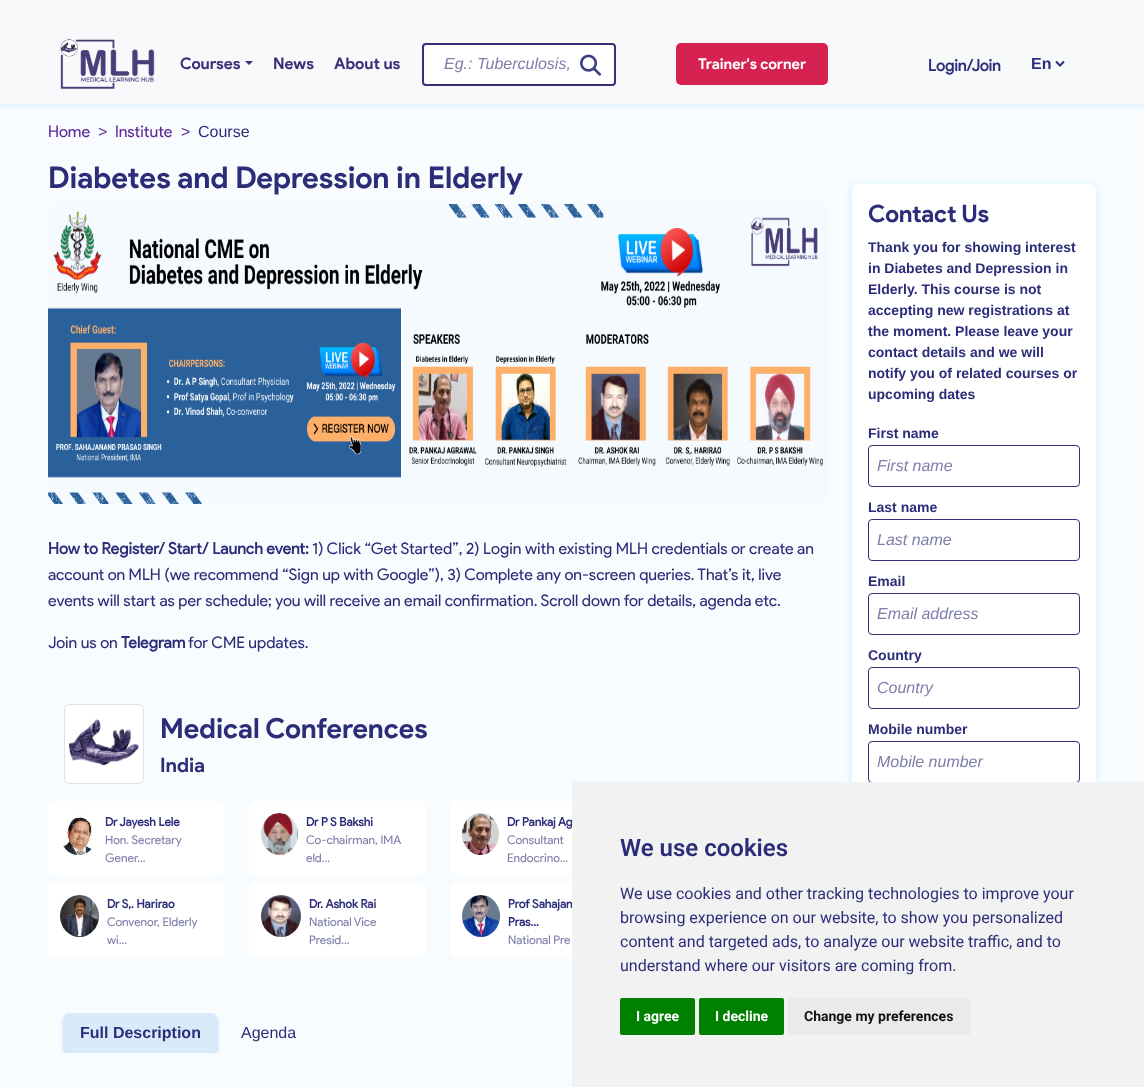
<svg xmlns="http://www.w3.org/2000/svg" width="1144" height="1087">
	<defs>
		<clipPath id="clip1"><rect x="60" y="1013" width="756" height="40" /></clipPath>
	</defs>
	<rect width="100%" height="100%" fill="#F9FCFE" />
	<rect x="0" y="1" width="1144" height="104" fill="#CEF0FF" filter="blur(3.5px)" />
	<rect x="0" y="0" width="1144" height="104" fill="#F8F9FA" />
	<image x="60" y="39" width="95" height="50" href="assets/img1.png" />
	<text x="180" y="69" font-family="Product Sans" font-size="16" font-weight="700" fill="#3F2C79">Courses</text>
	<path d="M245 61H253L249 65Z" fill="#3F2C79" />
	<g font-family="Product Sans" font-size="16" font-weight="700" fill="#3F2C79">
		<text x="273" y="69">News</text>
		<text x="334" y="69">About us</text>
	</g>
	<rect x="423" y="44" width="192" height="41" rx="3" fill="#FFFFFF" stroke="#3F2C79" stroke-width="2" />
	<text x="444" y="69" font-family="Liberation Sans" font-size="16" font-style="italic" fill="#7D7EAA">Eg.: Tuberculosis,</text>
	<image x="580" y="54" width="21" height="22" href="assets/img2.png" />
	<rect x="677" y="44" width="150" height="40" rx="4" fill="#D62251" stroke="#D62251" stroke-width="2" />
	<text x="698" y="69" font-family="Product Sans" font-size="15" font-weight="700" fill="#FFFFFF">Trainer's corner</text>
	<text x="928" y="71" font-family="'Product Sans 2'" font-size="16" font-weight="700" fill="#2C2D79">Login/Join</text>
	<path d="M1056 61.5L1060 65.5L1064 61.5" fill="none" stroke="#2C2D79" stroke-width="2" />
	<text x="1031" y="69" font-family="Liberation Sans" font-size="16" font-weight="700" fill="#2C2D79">En</text>
	<text x="48" y="137" font-family="Product Sans" font-size="16" fill="#5F2798">Home</text>
	<text x="98" y="137" font-family="Liberation Sans" font-size="16" fill="#5F2798">&gt;</text>
	<text x="115" y="137" font-family="Product Sans" font-size="16" fill="#5F2798">Institute</text>
	<text x="181" y="137" font-family="Liberation Sans" font-size="16" fill="#5F2798">&gt;</text>
	<text x="198" y="137" font-family="Liberation Sans" font-size="16" fill="#2C2D79">Course</text>
	<text x="48" y="188" font-family="Product Sans" font-size="30" font-weight="700" fill="#2C2D79">Diabetes and Depression in Elderly</text>
	<image x="48" y="204" width="780" height="300" href="assets/img3.png" />
	<text x="48" y="554" font-family="'Product Sans 2'" font-size="16" font-weight="700" fill="#2C2D79">How to Register/ Start/ Launch event:</text>
	<g font-family="Product Sans" font-size="16" fill="#2C2D79">
		<text x="312" y="554">1) Click “Get Started”, 2) Login with existing MLH credentials or create an</text>
		<text x="48" y="580">account on MLH (we recommend “Sign up with Google”), 3) Complete any on-screen queries. That’s it, live</text>
		<text x="48" y="606">events will start as per schedule; you will receive an email confirmation. Scroll down for details, agenda etc.</text>
		<text x="48" y="648">Join us on</text>
	</g>
	<text x="121" y="648" font-family="'Product Sans 2'" font-size="16" font-weight="700" fill="#2C2D79">Telegram</text>
	<text x="188" y="648" font-family="Product Sans" font-size="16" fill="#2C2D79">for CME updates.</text>
	<rect x="64.5" y="704.5" width="79" height="79" rx="5.5" fill="#FFFFFF" stroke="#DEE2E6" />
	<image x="69" y="719" width="70" height="47" href="assets/img4.png" />
	<text x="160" y="738" font-family="Product Sans" font-size="27.75" font-weight="700" fill="#2C2D79">Medical Conferences</text>
	<text x="160" y="772" font-family="Product Sans" font-size="20" font-weight="700" fill="#2C2D79">India</text>
	<rect x="48" y="801" width="177" height="74" rx="6" fill="#FFFFFF" />
	<image x="63" y="813" width="29" height="42" href="assets/img5.png" />
	<text x="105" y="826" font-family="'Product Sans 2'" font-size="12" font-weight="700" fill="#2C2D79">Dr Jayesh Lele</text>
	<g font-family="Product Sans" font-size="12" fill="#7D7EAA">
		<text x="105" y="844">Hon. Secretary</text>
		<text x="105" y="862">Gener...</text>
	</g>
	<rect x="249" y="801" width="177" height="74" rx="6" fill="#FFFFFF" />
	<image x="261" y="813" width="37" height="42" href="assets/img6.png" />
	<text x="306" y="826" font-family="'Product Sans 2'" font-size="12" font-weight="700" fill="#2C2D79">Dr P S Bakshi</text>
	<g font-family="Product Sans" font-size="12" fill="#7D7EAA">
		<text x="306" y="844">Co-chairman, IMA</text>
		<text x="306" y="862">eld...</text>
	</g>
	<rect x="450" y="801" width="177" height="74" rx="6" fill="#FFFFFF" />
	<image x="462" y="813" width="37" height="42" href="assets/img7.png" />
	<text x="507" y="826" font-family="'Product Sans 2'" font-size="12" font-weight="700" fill="#2C2D79">Dr Pankaj Ag</text>
	<g font-family="Product Sans" font-size="12" fill="#7D7EAA">
		<text x="507" y="844">Consultant</text>
		<text x="507" y="862">Endocrino...</text>
	</g>
	<rect x="48" y="883" width="177" height="74" rx="6" fill="#FFFFFF" />
	<image x="60" y="895" width="39" height="42" href="assets/img8.png" />
	<text x="107" y="908" font-family="'Product Sans 2'" font-size="12" font-weight="700" fill="#2C2D79">Dr S,. Harirao</text>
	<g font-family="Product Sans" font-size="12" fill="#7D7EAA">
		<text x="107" y="926">Convenor, Elderly</text>
		<text x="107" y="944">wi...</text>
	</g>
	<rect x="249" y="883" width="177" height="74" rx="6" fill="#FFFFFF" />
	<image x="261" y="895" width="40" height="42" href="assets/img9.png" />
	<text x="309" y="908" font-family="'Product Sans 2'" font-size="12" font-weight="700" fill="#2C2D79">Dr. Ashok Rai</text>
	<g font-family="Product Sans" font-size="12" fill="#7D7EAA">
		<text x="309" y="926">National Vice</text>
		<text x="309" y="944">Presid...</text>
	</g>
	<rect x="450" y="883" width="177" height="74" rx="6" fill="#FFFFFF" />
	<image x="462" y="895" width="38" height="42" href="assets/img10.png" />
	<g font-family="'Product Sans 2'" font-size="12" font-weight="700" fill="#2C2D79">
		<text x="508" y="908">Prof Sahajan</text>
		<text x="508" y="926">Pras...</text>
	</g>
	<text x="508" y="944" font-family="Product Sans" font-size="12" fill="#7D7EAA">National Pre</text>
	<g clip-path="url(#clip1)">
		<rect x="64" y="1015" width="153" height="40" rx="6" fill="#696CFF" fill-opacity="0.4" filter="blur(2px)" />
	</g>
	<rect x="64" y="1013" width="153" height="40" rx="6" fill="#D9EBFA" />
	<text x="80" y="1038" font-family="Liberation Sans" font-size="16" font-weight="700" fill="#2C2D79">Full Description</text>
	<text x="241" y="1038" font-family="Liberation Sans" font-size="16" fill="#2C2D79">Agenda</text>
	<rect x="852" y="185" width="244" height="809" rx="6" fill="#CEF0FF" filter="blur(5px)" />
	<rect x="852" y="184" width="244" height="809" rx="6" fill="#FFFFFF" />
	<text x="868" y="222" font-family="Product Sans" font-size="24" font-weight="700" fill="#2C2D79">Contact Us</text>
	<g font-family="Liberation Sans" font-size="14" font-weight="700" fill="#2C2D79">
		<text x="868" y="252">Thank you for showing interest</text>
		<text x="868" y="273">in Diabetes and Depression in</text>
		<text x="868" y="294">Elderly. This course is not</text>
		<text x="868" y="315">accepting new registrations at</text>
		<text x="868" y="336">the moment. Please leave your</text>
		<text x="868" y="357">contact details and we will</text>
		<text x="868" y="378">notify you of related courses or</text>
		<text x="868" y="399">upcoming dates</text>
		<text x="868" y="438">First name</text>
	</g>
	<rect x="868.5" y="445.5" width="211" height="41" rx="3.5" fill="none" stroke="#3F2C79" />
	<text x="877" y="471" font-family="Liberation Sans" font-size="16" font-style="italic" fill="#7D7EAA">First name</text>
	<text x="868" y="512" font-family="Liberation Sans" font-size="14" font-weight="700" fill="#2C2D79">Last name</text>
	<rect x="868.5" y="519.5" width="211" height="41" rx="3.5" fill="none" stroke="#3F2C79" />
	<text x="877" y="545" font-family="Liberation Sans" font-size="16" font-style="italic" fill="#7D7EAA">Last name</text>
	<text x="868" y="586" font-family="Liberation Sans" font-size="14" font-weight="700" fill="#2C2D79">Email</text>
	<rect x="868.5" y="593.5" width="211" height="41" rx="3.5" fill="none" stroke="#3F2C79" />
	<text x="877" y="619" font-family="Liberation Sans" font-size="16" font-style="italic" fill="#7D7EAA">Email address</text>
	<text x="868" y="660" font-family="Liberation Sans" font-size="14" font-weight="700" fill="#2C2D79">Country</text>
	<rect x="868.5" y="667.5" width="211" height="41" rx="3.5" fill="none" stroke="#3F2C79" />
	<text x="877" y="693" font-family="Liberation Sans" font-size="16" font-style="italic" fill="#7D7EAA">Country</text>
	<text x="868" y="734" font-family="Liberation Sans" font-size="14" font-weight="700" fill="#2C2D79">Mobile number</text>
	<rect x="868.5" y="741.5" width="211" height="41" rx="3.5" fill="none" stroke="#3F2C79" />
	<text x="877" y="767" font-family="Liberation Sans" font-size="16" font-style="italic" fill="#7D7EAA">Mobile number</text>
	<rect x="572" y="782" width="572" height="305" fill="#F2F2F2" />
	<text x="620" y="856" font-family="Roboto" font-size="24" font-weight="600" fill="#2C2D79">We use cookies</text>
	<g font-family="Roboto" font-size="16" fill="#2C2D79">
		<text x="620" y="899">We use cookies and other tracking technologies to improve your</text>
		<text x="620" y="923">browsing experience on our website, to show you personalized</text>
		<text x="620" y="947">content and targeted ads, to analyze our website traffic, and to</text>
		<text x="620" y="971">understand where our visitors are coming from.</text>
	</g>
	<rect x="620" y="998" width="75" height="37" rx="2" fill="#008000" />
	<text x="636" y="1021" font-family="Roboto" font-size="14" font-weight="700" fill="#FFFFFF">I agree</text>
	<rect x="699" y="998" width="85" height="37" rx="2" fill="#008000" />
	<text x="715" y="1021" font-family="Roboto" font-size="14" font-weight="700" fill="#FFFFFF">I decline</text>
	<rect x="788" y="998" width="182" height="37" rx="2" fill="#EAEAEA" />
	<text x="804" y="1021" font-family="Roboto" font-size="14" font-weight="700" fill="#111111">Change my preferences</text>
</svg>
